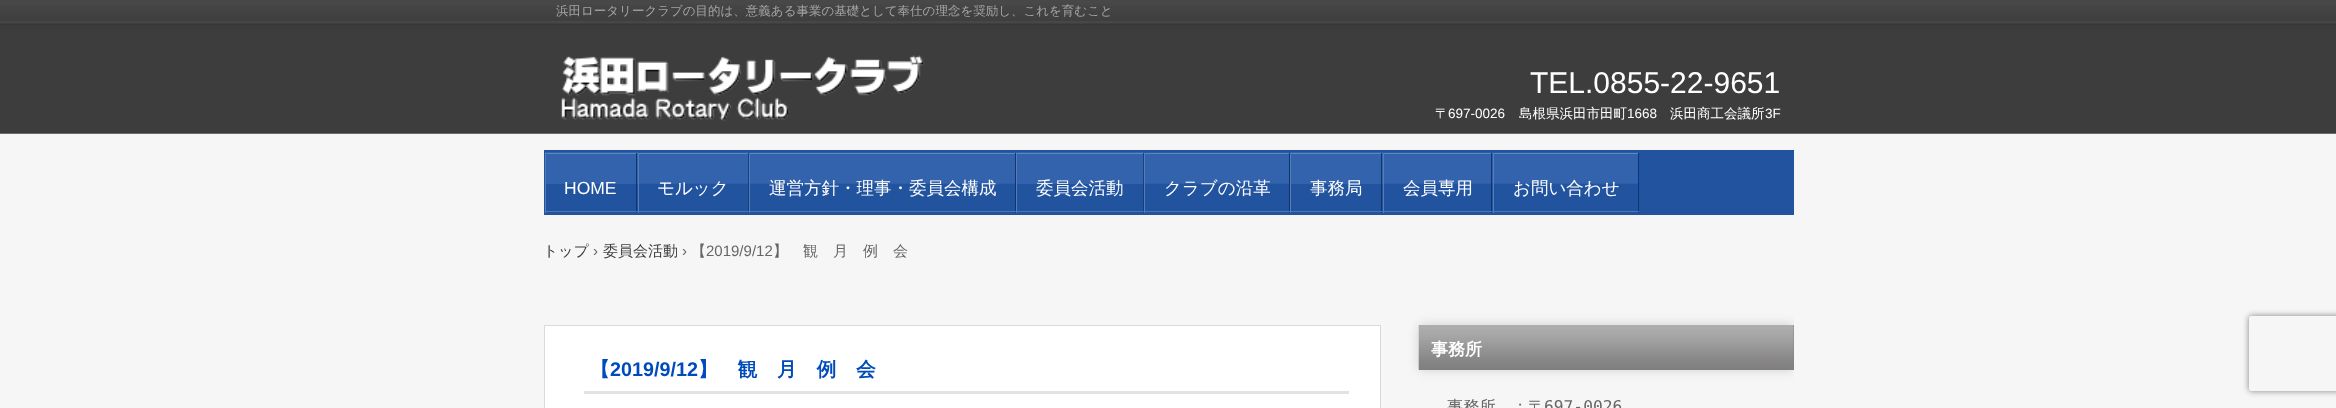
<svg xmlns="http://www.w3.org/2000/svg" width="2336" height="408">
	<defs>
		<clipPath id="clip1"><rect x="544" y="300" width="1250" height="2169" /></clipPath>
		<clipPath id="clip2"><path d="M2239 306H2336V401H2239ZM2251.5 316H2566.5C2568 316 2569 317 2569 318.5V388.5C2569 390 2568 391 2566.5 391H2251.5C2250 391 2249 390 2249 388.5V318.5C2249 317 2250 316 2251.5 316Z" clip-rule="evenodd" /></clipPath>
	</defs>
	<rect width="100%" height="100%" fill="#F6F6F6" />
	<image x="0" y="0" width="2336" height="134" href="assets/img1.png" />
	<text x="556" y="15" font-family="WenQuanYi Zen Hei" font-size="12.5" font-weight="500" fill="#A4A4A4">浜田ロータリークラブの目的は、意義ある事業の基礎として奉仕の理念を奨励し、これを育むこと</text>
	<image x="561" y="55" width="364" height="66" href="assets/img2.png" />
	<text x="1530" y="93" font-family="Liberation Sans" font-size="30" fill="#FFFFFF">TEL.0855-22-9651</text>
	<text x="1435" y="118" font-family="WenQuanYi Zen Hei" font-size="13.5" font-weight="500" fill="#FFFFFF">〒</text>
	<text x="1448" y="118" font-family="Liberation Sans" font-size="13.5" fill="#FFFFFF">697-0026</text>
	<text x="1519" y="118" font-family="WenQuanYi Zen Hei" font-size="13.5" font-weight="500" fill="#FFFFFF">島根県浜田市田町</text>
	<text x="1627" y="118" font-family="Liberation Sans" font-size="13.5" fill="#FFFFFF">1668</text>
	<text x="1670" y="118" font-family="WenQuanYi Zen Hei" font-size="13.5" font-weight="500" fill="#FFFFFF">浜田商工会議所</text>
	<text x="1765" y="118" font-family="Liberation Sans" font-size="13.5" fill="#FFFFFF">3F</text>
	<rect x="544" y="150" width="1250" height="65" fill="#21539F" />
	<rect x="545" y="152" width="93" height="32" fill="#3363AC" />
	<rect x="545" y="153" width="93" height="1" fill="#6086C1" />
	<rect x="636" y="153" width="1" height="60" fill="#0F3674" />
	<rect x="545" y="211" width="93" height="1" fill="#4F75AF" />
	<rect x="545" y="153" width="1" height="60" fill="#577DB7" />
	<text x="564" y="194" font-family="Liberation Sans" font-size="17.5" fill="#FFFFFF">HOME</text>
	<image x="637" y="152" width="112" height="60" href="assets/img3.png" />
	<rect x="638" y="153" width="111" height="1" fill="#6086C1" />
	<rect x="748" y="153" width="1" height="60" fill="#0F3674" />
	<rect x="638" y="211" width="111" height="1" fill="#4F75AF" />
	<rect x="638" y="153" width="1" height="60" fill="#577DB7" />
	<text x="657" y="194" font-family="WenQuanYi Zen Hei" font-size="17.5" font-weight="500" fill="#FFFFFF">モルック</text>
	<image x="748" y="152" width="268" height="61" href="assets/img4.png" />
	<rect x="749" y="153" width="267" height="1" fill="#6086C1" />
	<rect x="1015" y="153" width="1" height="60" fill="#0F3674" />
	<rect x="749" y="211" width="267" height="1" fill="#4F75AF" />
	<rect x="749" y="153" width="1" height="60" fill="#577DB7" />
	<text x="769" y="194" font-family="WenQuanYi Zen Hei" font-size="17.5" font-weight="500" fill="#FFFFFF">運営方針・理事・委員会構成</text>
	<rect x="1016" y="152" width="128" height="32" fill="#3363AC" />
	<rect x="1016" y="153" width="128" height="1" fill="#6086C1" />
	<rect x="1143" y="153" width="1" height="60" fill="#0F3674" />
	<rect x="1016" y="211" width="128" height="1" fill="#4F75AF" />
	<rect x="1016" y="153" width="1" height="60" fill="#577DB7" />
	<text x="1036" y="194" font-family="WenQuanYi Zen Hei" font-size="17.5" font-weight="500" fill="#FFFFFF">委員会活動</text>
	<image x="1143" y="152" width="147" height="61" href="assets/img5.png" />
	<rect x="1144" y="153" width="146" height="1" fill="#6086C1" />
	<rect x="1289" y="153" width="1" height="60" fill="#0F3674" />
	<rect x="1144" y="211" width="146" height="1" fill="#4F75AF" />
	<rect x="1144" y="153" width="1" height="60" fill="#577DB7" />
	<text x="1164" y="194" font-family="WenQuanYi Zen Hei" font-size="17.5" font-weight="500" fill="#FFFFFF">クラブの沿革</text>
	<rect x="1290" y="152" width="93" height="32" fill="#3363AC" />
	<rect x="1290" y="153" width="93" height="1" fill="#6086C1" />
	<rect x="1381" y="153" width="1" height="60" fill="#0F3674" />
	<rect x="1290" y="211" width="93" height="1" fill="#4F75AF" />
	<rect x="1290" y="153" width="1" height="60" fill="#577DB7" />
	<text x="1310" y="194" font-family="WenQuanYi Zen Hei" font-size="17.5" font-weight="500" fill="#FFFFFF">事務局</text>
	<image x="1382" y="152" width="111" height="60" href="assets/img6.png" />
	<rect x="1383" y="153" width="110" height="1" fill="#6086C1" />
	<rect x="1491" y="153" width="1" height="60" fill="#0F3674" />
	<rect x="1383" y="211" width="110" height="1" fill="#4F75AF" />
	<rect x="1383" y="153" width="1" height="60" fill="#577DB7" />
	<text x="1403" y="194" font-family="WenQuanYi Zen Hei" font-size="17.5" font-weight="500" fill="#FFFFFF">会員専用</text>
	<image x="1492" y="152" width="147" height="60" href="assets/img7.png" />
	<rect x="1493" y="153" width="146" height="1" fill="#6086C1" />
	<rect x="1638" y="153" width="1" height="60" fill="#0F3674" />
	<rect x="1493" y="211" width="146" height="1" fill="#4F75AF" />
	<rect x="1493" y="153" width="1" height="60" fill="#577DB7" />
	<text x="1513" y="194" font-family="WenQuanYi Zen Hei" font-size="17.5" font-weight="500" fill="#FFFFFF">お問い合わせ</text>
	<text x="543" y="256" font-family="WenQuanYi Zen Hei" font-size="15" font-weight="500" fill="#3C3C3C">トップ</text>
	<text x="593" y="256" font-family="Liberation Sans" font-size="15" fill="#666666">›</text>
	<text x="603" y="256" font-family="WenQuanYi Zen Hei" font-size="15" font-weight="500" fill="#3C3C3C">委員会活動</text>
	<text x="682" y="256" font-family="Liberation Sans" font-size="15" fill="#666666">›</text>
	<text x="691" y="256" font-family="WenQuanYi Zen Hei" font-size="15" font-weight="500" fill="#666666">【</text>
	<text x="706" y="256" font-family="Liberation Sans" font-size="15" fill="#666666">2019/9/12</text>
	<text x="773" y="256" font-family="WenQuanYi Zen Hei" font-size="15" font-weight="500" fill="#666666">】　観　月　例　会</text>
	<rect x="544.5" y="325.5" width="836" height="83" fill="#FFFFFF" stroke="#D9D9D9" />
	<rect x="584" y="391" width="765" height="3" fill="#E2E2E2" />
	<text x="590" y="376" font-family="WenQuanYi Zen Hei" font-size="19.75" font-weight="700" fill="#004BBC">【</text>
	<text x="610" y="376" font-family="Liberation Sans" font-size="19.75" font-weight="700" fill="#004BBC">2019/9/12</text>
	<text x="698" y="376" font-family="WenQuanYi Zen Hei" font-size="19.75" font-weight="700" fill="#004BBC">】　観　月　例　会</text>
	<g clip-path="url(#clip1)">
		<rect x="1419" y="325" width="375" height="45" fill="#000000" fill-opacity="0.15" filter="blur(6px)" />
	</g>
	<rect x="1793" y="325" width="1" height="45" fill="#807F7F" />
	<image x="1418" y="325" width="376" height="45" href="assets/img8.png" />
	<text x="1431" y="355" font-family="WenQuanYi Zen Hei" font-size="17" font-weight="700" fill="#FFFFFF">事務所</text>
	<text x="1447" y="412" font-family="WenQuanYi Zen Hei" font-size="16.25" font-weight="500" fill="#666666">事務所　：〒</text>
	<text x="1544" y="412" font-family="DejaVu Sans Mono" font-size="16.25" fill="#666666">697-0026</text>
	<g clip-path="url(#clip2)">
		<rect x="2249" y="316" width="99" height="75" rx="2.5" fill="#808080" filter="blur(3px)" />
	</g>
</svg>
